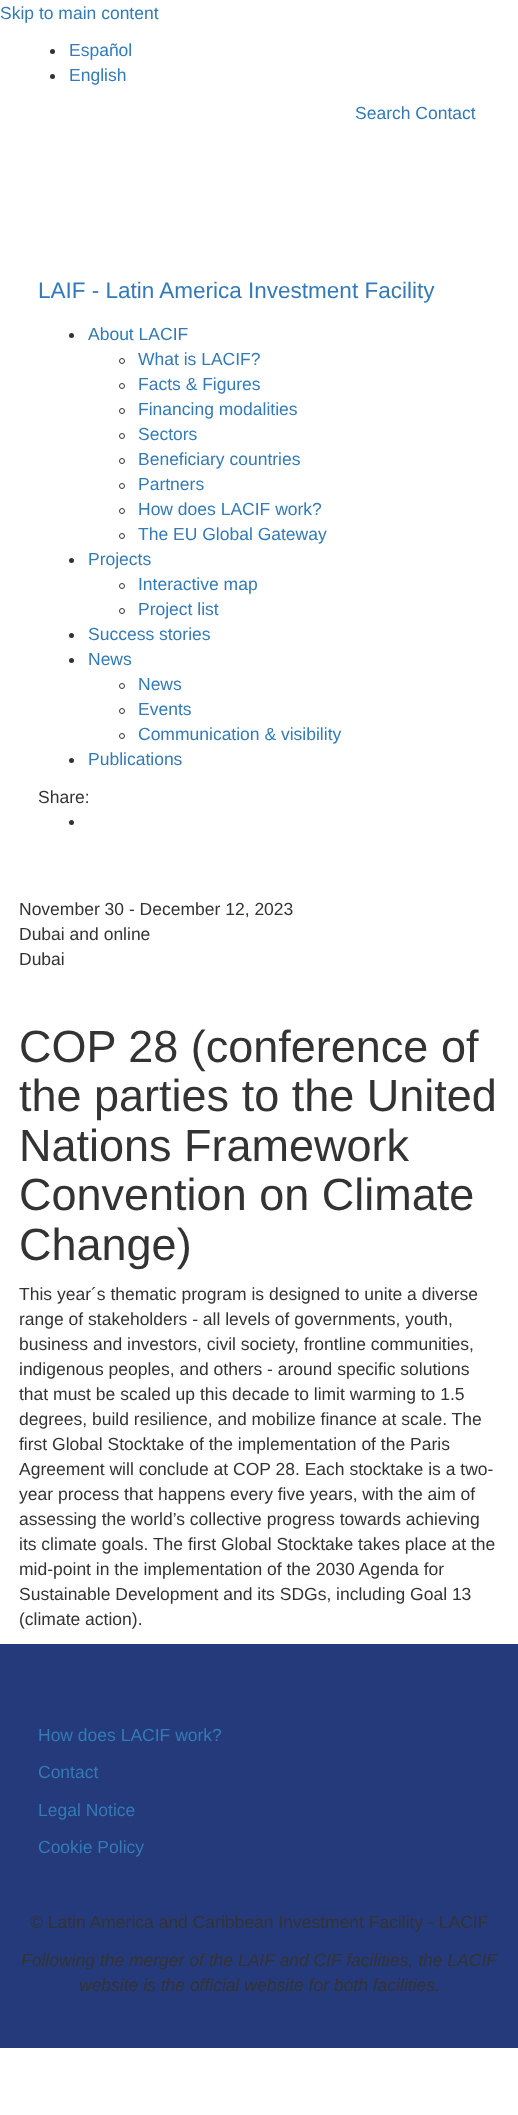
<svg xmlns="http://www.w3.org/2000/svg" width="518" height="2115">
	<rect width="100%" height="100%" fill="#FFFFFF" />
	<text x="0" y="19" font-family="Liberation Sans" font-size="17.5" fill="#337AB7">Skip to main content</text>
	<circle cx="52.5" cy="51.5" r="2.5" fill="#333333" />
	<text x="69" y="56" font-family="Liberation Sans" font-size="17.5" fill="#337AB7">Español</text>
	<circle cx="52.5" cy="76.5" r="2.5" fill="#333333" />
	<g font-family="Liberation Sans" font-size="17.5" fill="#337AB7">
		<text x="69" y="81">English</text>
		<text x="355" y="119">Search Contact</text>
	</g>
	<text x="38" y="298" font-family="Liberation Sans" font-size="22.5" fill="#337AB7">LAIF - Latin America Investment Facility</text>
	<circle cx="71.5" cy="335.5" r="2.5" fill="#333333" />
	<text x="88" y="340" font-family="Liberation Sans" font-size="17.5" fill="#337AB7">About LACIF</text>
	<circle cx="122" cy="361" r="2.5" fill="none" stroke="#333333" />
	<text x="138" y="365" font-family="Liberation Sans" font-size="17.5" fill="#337AB7">What is LACIF?</text>
	<circle cx="122" cy="386" r="2.5" fill="none" stroke="#333333" />
	<text x="138" y="390" font-family="Liberation Sans" font-size="17.5" fill="#337AB7">Facts &amp; Figures</text>
	<circle cx="122" cy="411" r="2.5" fill="none" stroke="#333333" />
	<text x="138" y="415" font-family="Liberation Sans" font-size="17.5" fill="#337AB7">Financing modalities</text>
	<circle cx="122" cy="436" r="2.5" fill="none" stroke="#333333" />
	<text x="138" y="440" font-family="Liberation Sans" font-size="17.5" fill="#337AB7">Sectors</text>
	<circle cx="122" cy="461" r="2.5" fill="none" stroke="#333333" />
	<text x="138" y="465" font-family="Liberation Sans" font-size="17.5" fill="#337AB7">Beneficiary countries</text>
	<circle cx="122" cy="486" r="2.5" fill="none" stroke="#333333" />
	<text x="138" y="490" font-family="Liberation Sans" font-size="17.5" fill="#337AB7">Partners</text>
	<circle cx="122" cy="511" r="2.5" fill="none" stroke="#333333" />
	<text x="138" y="515" font-family="Liberation Sans" font-size="17.5" fill="#337AB7">How does LACIF work?</text>
	<circle cx="122" cy="536" r="2.5" fill="none" stroke="#333333" />
	<text x="138" y="540" font-family="Liberation Sans" font-size="17.5" fill="#337AB7">The EU Global Gateway</text>
	<circle cx="71.5" cy="560.5" r="2.5" fill="#333333" />
	<text x="88" y="565" font-family="Liberation Sans" font-size="17.5" fill="#337AB7">Projects</text>
	<circle cx="122" cy="586" r="2.5" fill="none" stroke="#333333" />
	<text x="138" y="590" font-family="Liberation Sans" font-size="17.5" fill="#337AB7">Interactive map</text>
	<circle cx="122" cy="611" r="2.5" fill="none" stroke="#333333" />
	<text x="138" y="615" font-family="Liberation Sans" font-size="17.5" fill="#337AB7">Project list</text>
	<circle cx="71.5" cy="635.5" r="2.5" fill="#333333" />
	<text x="88" y="640" font-family="Liberation Sans" font-size="17.5" fill="#337AB7">Success stories</text>
	<circle cx="71.5" cy="660.5" r="2.5" fill="#333333" />
	<text x="88" y="665" font-family="Liberation Sans" font-size="17.5" fill="#337AB7">News</text>
	<circle cx="122" cy="686" r="2.5" fill="none" stroke="#333333" />
	<text x="138" y="690" font-family="Liberation Sans" font-size="17.5" fill="#337AB7">News</text>
	<circle cx="122" cy="711" r="2.5" fill="none" stroke="#333333" />
	<text x="138" y="715" font-family="Liberation Sans" font-size="17.5" fill="#337AB7">Events</text>
	<circle cx="122" cy="736" r="2.5" fill="none" stroke="#333333" />
	<text x="138" y="740" font-family="Liberation Sans" font-size="17.5" fill="#337AB7">Communication &amp; visibility</text>
	<circle cx="71.5" cy="760.5" r="2.5" fill="#333333" />
	<text x="88" y="765" font-family="Liberation Sans" font-size="17.5" fill="#337AB7">Publications</text>
	<text x="38" y="803" font-family="Liberation Sans" font-size="17.5" fill="#333333">Share:</text>
	<circle cx="71.5" cy="822.5" r="2.5" fill="#333333" />
	<g font-family="Liberation Sans" font-size="17.5" fill="#333333">
		<text x="19" y="915">November 30 - December 12, 2023</text>
		<text x="19" y="940">Dubai and online</text>
		<text x="19" y="965">Dubai</text>
	</g>
	<g font-family="Liberation Sans" font-size="45" fill="#333333">
		<text x="19" y="1062">COP 28 (conference of</text>
		<text x="19" y="1111">the parties to the United</text>
		<text x="19" y="1161">Nations Framework</text>
		<text x="19" y="1210">Convention on Climate</text>
		<text x="19" y="1260">Change)</text>
	</g>
	<g font-family="Liberation Sans" font-size="17.5" fill="#333333">
		<text x="19" y="1300">This year´s thematic program is designed to unite a diverse</text>
		<text x="19" y="1325">range of stakeholders - all levels of governments, youth,</text>
		<text x="19" y="1350">business and investors, civil society, frontline communities,</text>
		<text x="19" y="1375">indigenous peoples, and others - around specific solutions</text>
		<text x="19" y="1400">that must be scaled up this decade to limit warming to 1.5</text>
		<text x="19" y="1425">degrees, build resilience, and mobilize finance at scale. The</text>
		<text x="19" y="1450">first Global Stocktake of the implementation of the Paris</text>
		<text x="19" y="1475">Agreement will conclude at COP 28. Each stocktake is a two-</text>
		<text x="19" y="1500">year process that happens every five years, with the aim of</text>
		<text x="19" y="1525">assessing the world’s collective progress towards achieving</text>
		<text x="19" y="1550">its climate goals. The first Global Stocktake takes place at the</text>
		<text x="19" y="1575">mid-point in the implementation of the 2030 Agenda for</text>
		<text x="19" y="1600">Sustainable Development and its SDGs, including Goal 13</text>
		<text x="19" y="1625">(climate action).</text>
	</g>
	<rect x="0" y="1644" width="518" height="404" fill="#253A7A" />
	<g font-family="Liberation Sans" font-size="17.5" fill="#337AB7">
		<text x="38" y="1741">How does LACIF work?</text>
		<text x="38" y="1778">Contact</text>
		<text x="38" y="1816">Legal Notice</text>
		<text x="38" y="1853">Cookie Policy</text>
	</g>
	<text x="30" y="1928" font-family="Liberation Sans" font-size="17.5" fill="#333333">© Latin America and Caribbean Investment Facility - LACIF</text>
	<g font-family="Liberation Sans" font-size="17.5" font-style="italic" fill="#333333">
		<text x="21" y="1966">Following the merger of the LAIF and CIF facilities, the LACIF</text>
		<text x="79" y="1991">website is the official website for both facilities.</text>
	</g>
</svg>
